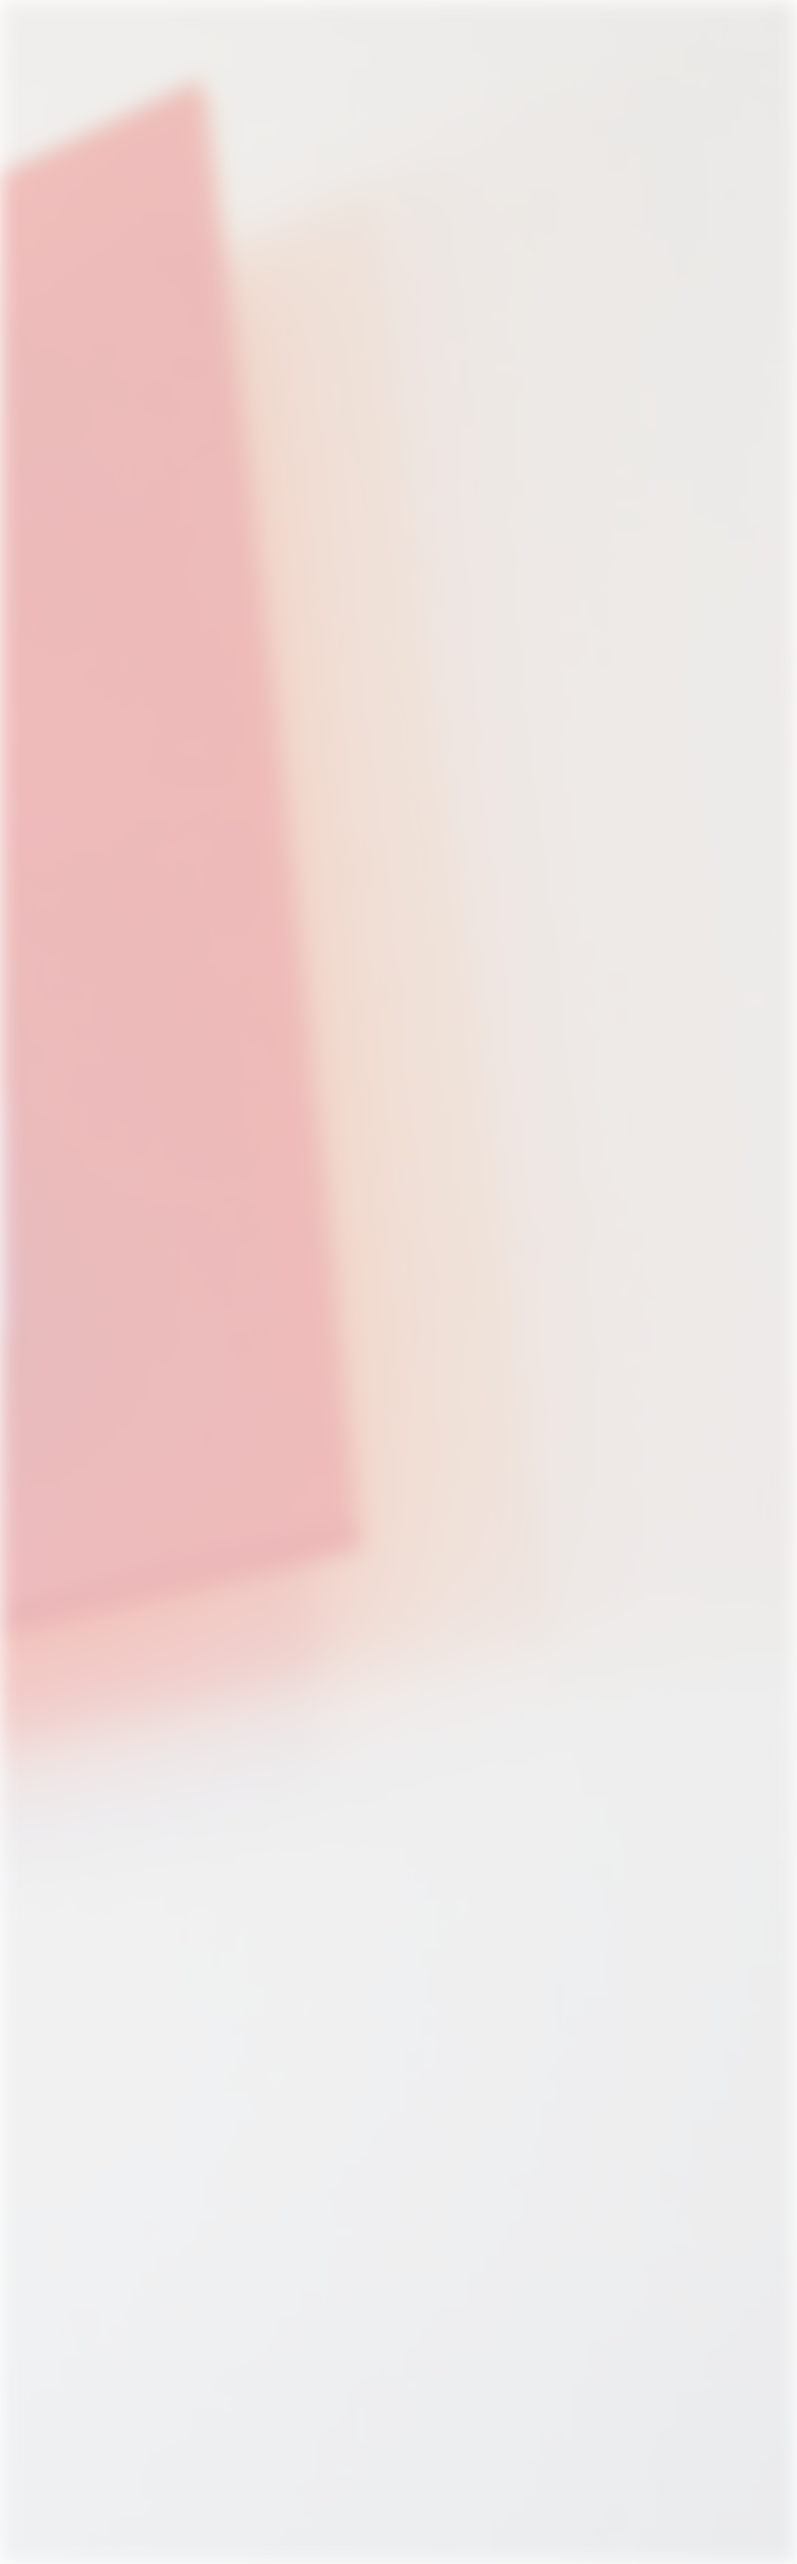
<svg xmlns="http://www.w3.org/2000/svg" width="797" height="2564">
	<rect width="100%" height="100%" fill="#FFFFFF" />
	<image x="0" y="0" width="797" height="2564" href="assets/img1.png" />
</svg>
